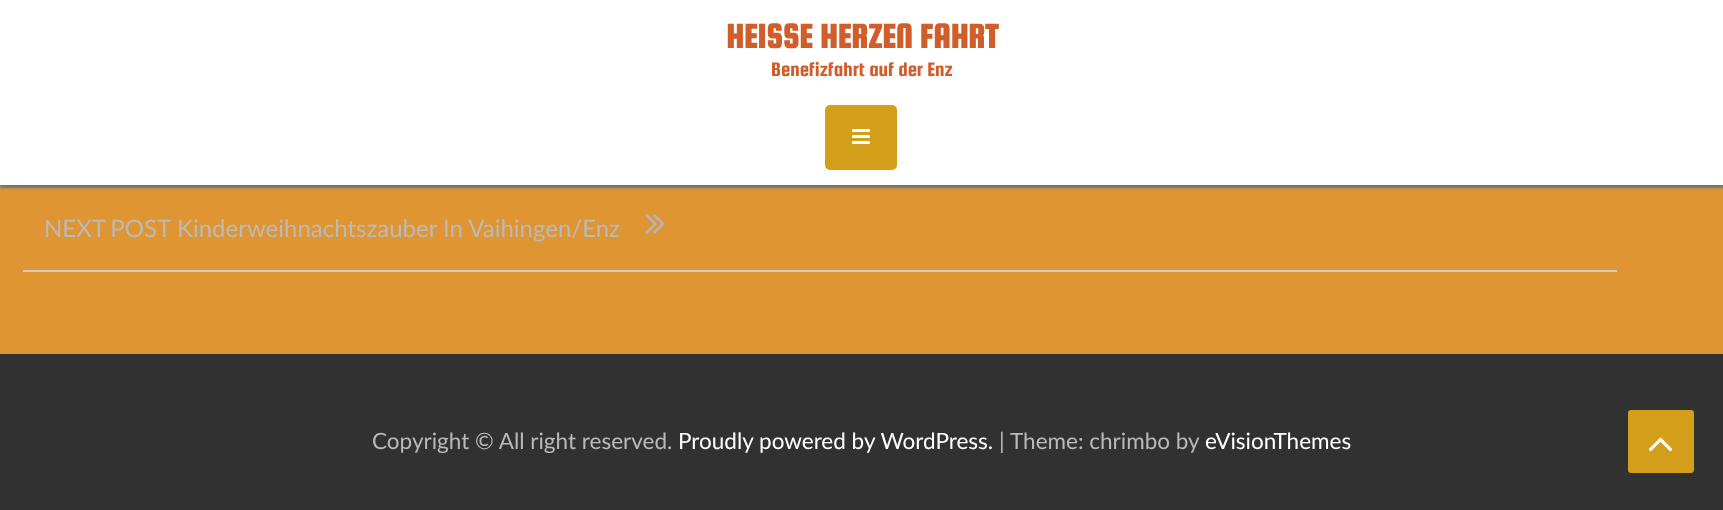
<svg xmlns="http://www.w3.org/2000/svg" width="1723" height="510">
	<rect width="100%" height="100%" fill="#E09533" />
	<rect x="0" y="3" width="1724" height="185" fill="#737373" filter="blur(1px)" />
	<rect x="0" y="0" width="1723" height="185" fill="#FFFFFF" />
	<text x="726" y="48" font-family="Squada One" font-size="36" font-weight="700" fill="#D15D2B">HEISSE HERZEN FAHRT</text>
	<text x="771" y="76" font-family="Squada One" font-size="21" fill="#D15D2B">Benefizfahrt auf der Enz</text>
	<rect x="825" y="105" width="72" height="65" rx="5" fill="#D39F1B" />
	<image x="852" y="129" width="18" height="15" href="assets/img1.png" />
	<rect x="23" y="270" width="1594" height="2" fill="#CCCCCC" />
	<g font-family="Lato" font-size="24" fill="#BABABA">
		<text x="44" y="237" word-spacing="-1">NEXT POST</text>
		<text x="177" y="237">Kinderweihnachtszauber In Vaihingen/Enz</text>
	</g>
	<image x="645" y="214" width="20" height="20" href="assets/img2.png" />
	<rect x="0" y="354" width="1723" height="156" fill="#313131" />
	<text x="372" y="449" font-family="Lato" font-size="22.5" fill="#BABABA">Copyright © All right reserved.</text>
	<text x="678" y="449" font-family="Lato" font-size="22.5" fill="#FFFFFF">Proudly powered by WordPress.</text>
	<g font-family="Lato" font-size="22.5" fill="#BABABA">
		<text x="999" y="449">|</text>
		<text x="1010" y="449">Theme: chrimbo by</text>
	</g>
	<text x="1205" y="449" font-family="Lato" font-size="22.5" fill="#FFFFFF">eVisionThemes</text>
	<rect x="1628" y="410" width="66" height="63" rx="3" fill="#D39F1B" />
	<image x="1648" y="437" width="25" height="15" href="assets/img3.png" />
</svg>
